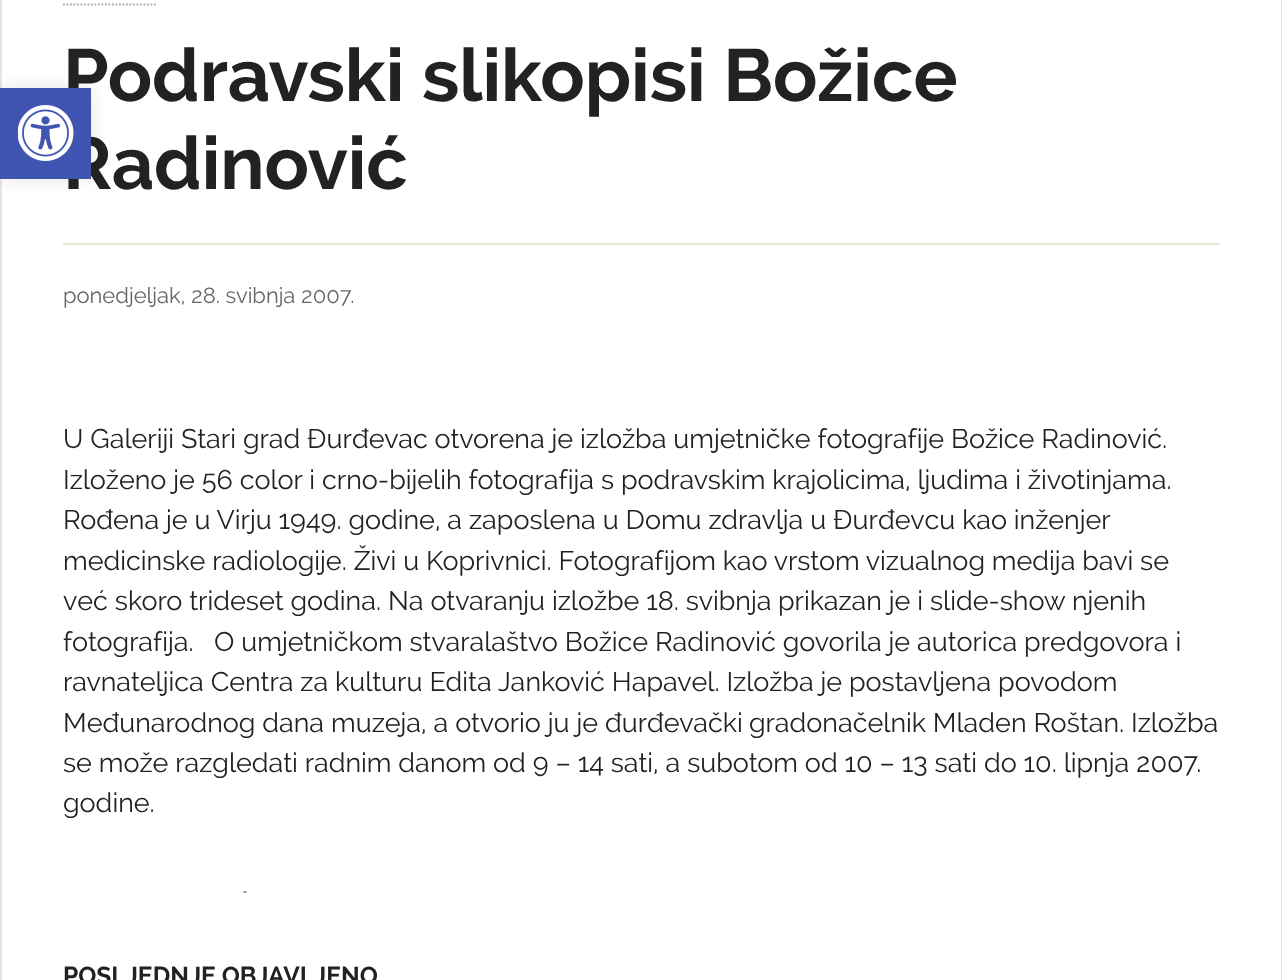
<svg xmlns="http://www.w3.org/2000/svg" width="1282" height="980">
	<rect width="100%" height="100%" fill="#FFFFFF" />
	<rect x="1" y="-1" width="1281" height="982" fill="none" stroke="#ECE6DA" stroke-width="2" />
	<rect x="0" y="88" width="91" height="91" fill="#000000" fill-opacity="0.1" filter="blur(9px)" />
	<g font-family="Raleway" font-size="73.5" font-weight="700" fill="#222222">
		<text x="63" y="101">Podravski slikopisi Božice</text>
		<text x="63" y="189">Radinović</text>
	</g>
	<rect x="0" y="88" width="91" height="91" fill="#4054B2" />
	<image x="18" y="105" width="56" height="56" href="assets/img1.png" />
	<path d="M63 4.5H156" fill="none" stroke="#AAAAAA" stroke-width="1.8" stroke-dasharray="1.75 1.75" />
	<rect x="63" y="243" width="1157" height="2" fill="#ECE6DA" />
	<text x="63" y="303" font-family="Raleway" font-size="22" fill="#666666">ponedjeljak, 28. svibnja 2007.</text>
	<g font-family="Raleway" font-size="26.95" fill="#222222">
		<text x="63" y="448">U Galeriji Stari grad Đurđevac otvorena je izložba umjetničke fotografije Božice Radinović.</text>
		<text x="63" y="489">Izloženo je 56 color i crno-bijelih fotografija s podravskim krajolicima, ljudima i životinjama.</text>
		<text x="63" y="529">Rođena je u Virju 1949. godine, a</text>
		<text x="469" y="529">zaposlena u Domu zdravlja u Đurđevcu kao inženjer</text>
		<text x="63" y="570">medicinske radiologije. Živi u Koprivnici. Fotografijom kao vrstom vizualnog medija bavi se</text>
		<text x="63" y="610">već skoro trideset godina. Na otvaranju izložbe 18. svibnja</text>
		<text x="778" y="610">prikazan je i slide-show njenih</text>
		<text x="63" y="651">fotografija.</text>
		<text x="214" y="651">O umjetničkom stvaralaštvo Božice Radinović govorila je autorica predgovora i</text>
		<text x="63" y="691">ravnateljica Centra za kulturu Edita Janković Hapavel. Izložba je postavljena povodom</text>
		<text x="63" y="732">Međunarodnog dana muzeja, a otvorio ju je đurđevački</text>
		<text x="749" y="732">gradonačelnik Mladen Roštan. Izložba</text>
		<text x="63" y="772">se može razgledati radnim danom od 9 – 14 sati, a subotom od 10 – 13 sati do 10. lipnja 2007.</text>
		<text x="63" y="812">godine.</text>
	</g>
	<rect x="243" y="891" width="4" height="2" fill="#AAAAAA" />
	<text x="63" y="984" font-family="Raleway" font-size="24.5" font-weight="700" fill="#222222">POSLJEDNJE OBJAVLJENO</text>
</svg>
